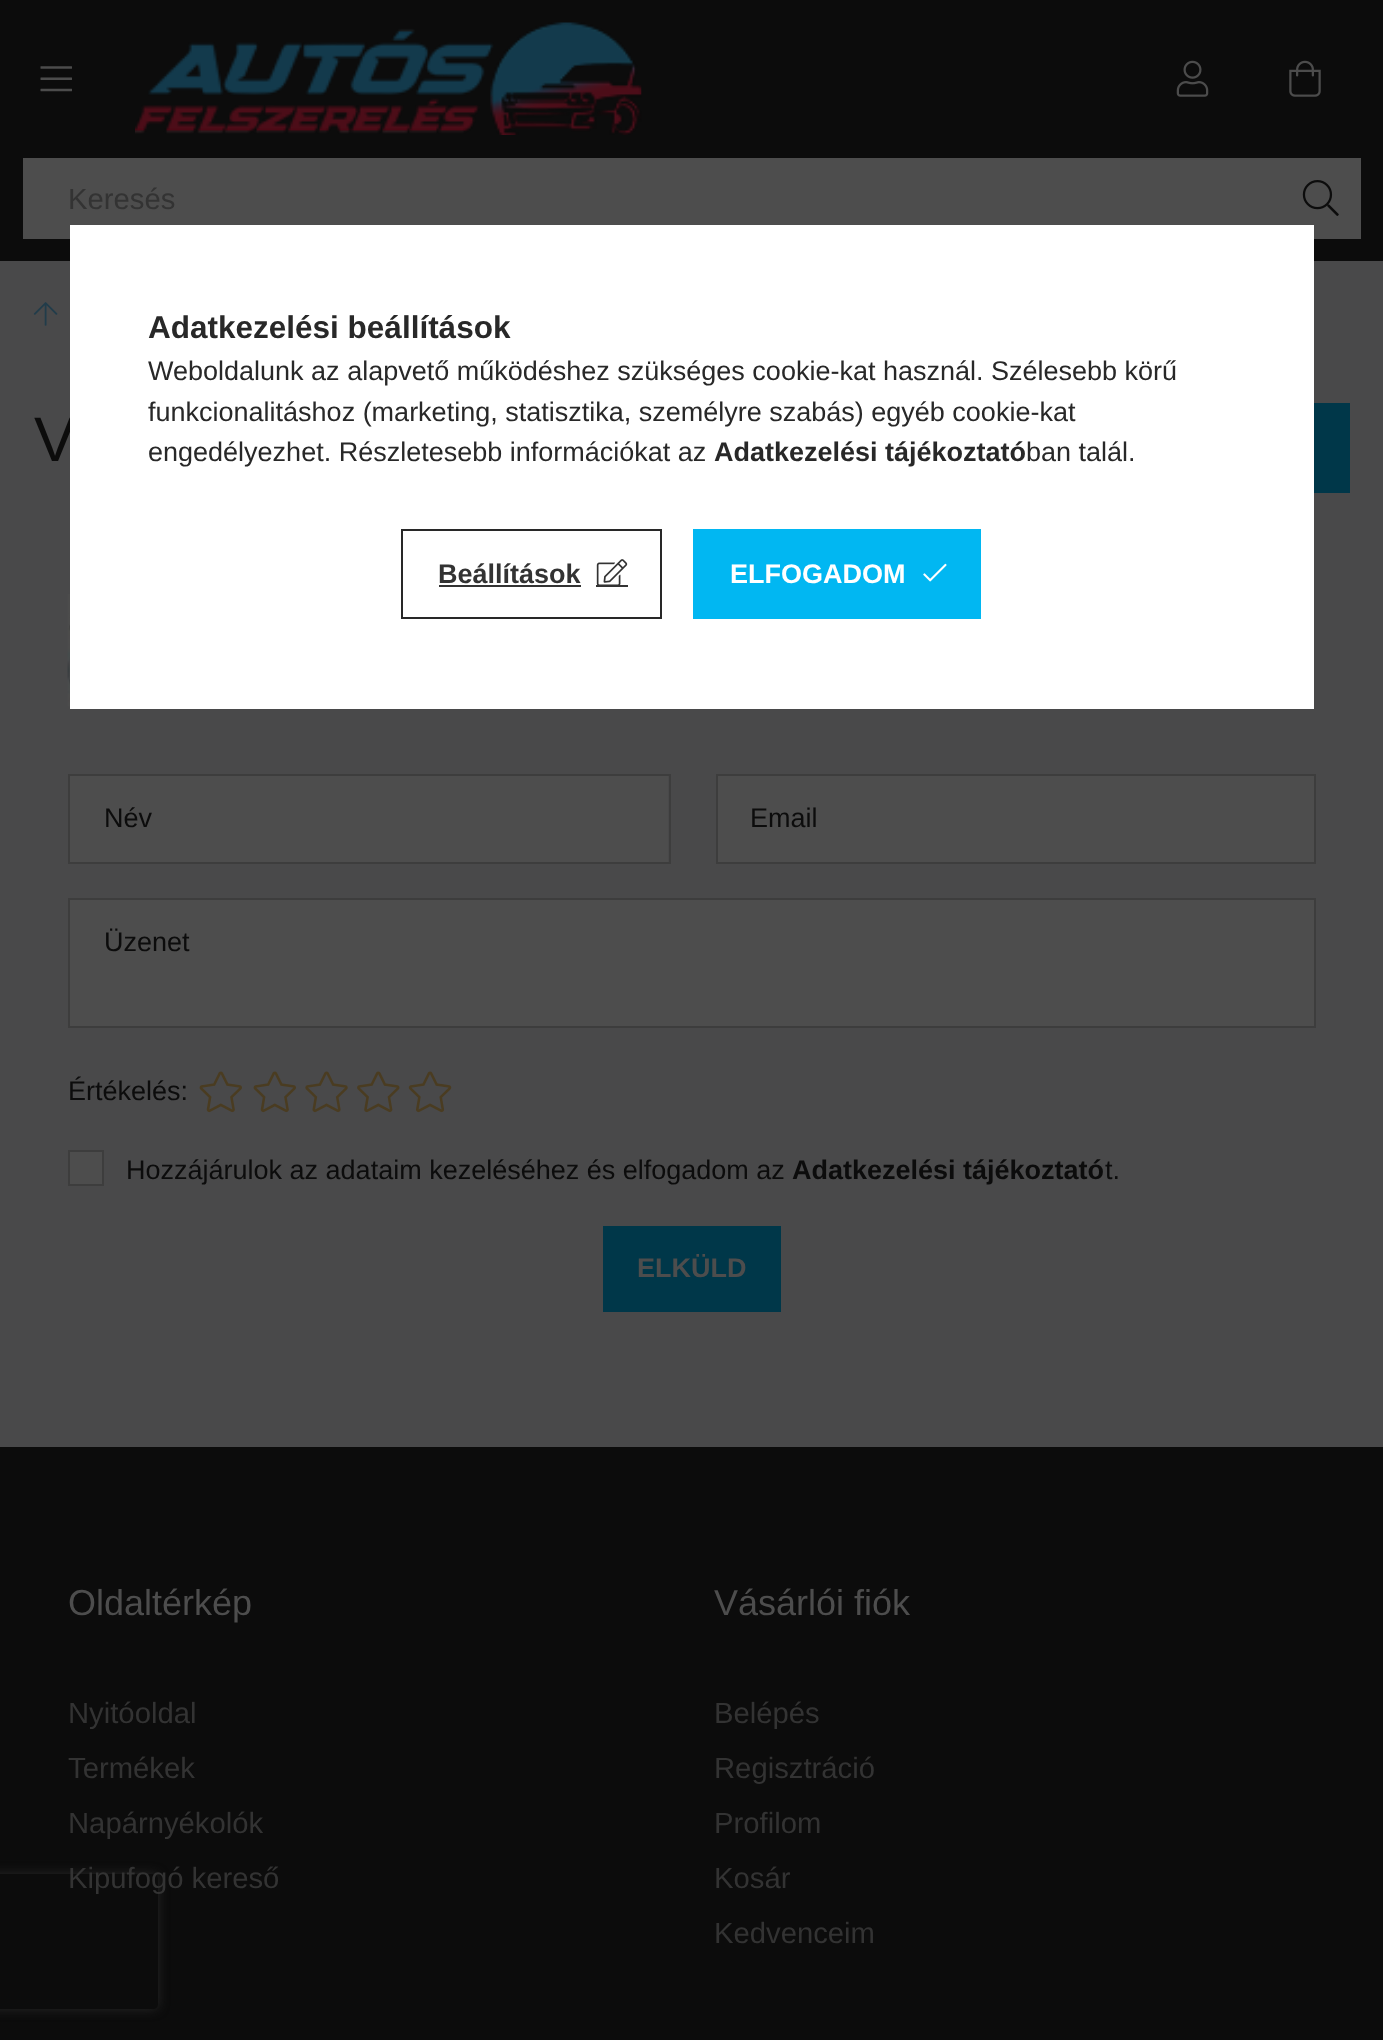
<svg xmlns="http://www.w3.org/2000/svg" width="1383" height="2040">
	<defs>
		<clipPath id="clip1"><path d="M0 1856H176V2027H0ZM-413 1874H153C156 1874 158 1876 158 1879V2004C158 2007 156 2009 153 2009H-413C-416 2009-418 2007-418 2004V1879C-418 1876-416 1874-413 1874Z" clip-rule="evenodd" /></clipPath>
	</defs>
	<rect width="100%" height="100%" fill="#49494A" />
	<rect x="0" y="0" width="1383" height="261" fill="#0C0C0C" />
	<image x="40" y="66" width="32" height="26" href="assets/img1.png" />
	<image x="135" y="22" width="507" height="113" href="assets/img2.png" />
	<image x="1176" y="60" width="33" height="37" href="assets/img3.png" />
	<image x="1289" y="60" width="32" height="37" href="assets/img4.png" />
	<rect x="23" y="158" width="1338" height="81" fill="#4D4D4D" />
	<text x="68" y="209" font-family="Liberation Sans" font-size="29.25" fill="#333333">Keresés</text>
	<image x="1302" y="180" width="37" height="36" href="assets/img5.png" />
	<image x="33" y="302" width="25" height="24" href="assets/img6.png" />
	<text x="34" y="461" font-family="Liberation Sans" font-size="63" fill="#0C0C0C">V</text>
	<rect x="1314" y="403" width="36" height="90" fill="#003749" />
	<image x="67" y="594" width="3" height="113" href="assets/img7.png" />
	<rect x="70" y="776" width="598" height="86" fill="#4D4D4D" />
	<rect x="69" y="775" width="601" height="88" fill="none" stroke="#3D3D3D" stroke-width="2" />
	<text x="104" y="827" font-family="Liberation Sans" font-size="27" fill="#0C0C0C">Név</text>
	<rect x="717" y="775" width="598" height="88" fill="#4D4D4D" stroke="#3D3D3D" stroke-width="2" />
	<text x="750" y="827" font-family="Liberation Sans" font-size="27" fill="#0C0C0C">Email</text>
	<rect x="69" y="899" width="1246" height="128" fill="#4D4D4D" stroke="#3D3D3D" stroke-width="2" />
	<g font-family="Liberation Sans" font-size="27" fill="#0C0C0C">
		<text x="104" y="951">Üzenet</text>
		<text x="68" y="1100">Értékelés:</text>
	</g>
	<image x="199" y="1071" width="43" height="42" href="assets/img8.png" />
	<image x="253" y="1071" width="43" height="42" href="assets/img8.png" />
	<image x="305" y="1071" width="43" height="42" href="assets/img9.png" />
	<image x="357" y="1071" width="43" height="42" href="assets/img10.png" />
	<image x="408" y="1071" width="44" height="42" href="assets/img11.png" />
	<rect x="69" y="1151" width="34" height="34" fill="#4D4D4D" stroke="#3D3D3D" stroke-width="2" />
	<text x="126" y="1179" font-family="Liberation Sans" font-size="27" fill="#0C0C0C">Hozzájárulok az adataim kezeléséhez és elfogadom az</text>
	<text x="792" y="1179" font-family="Liberation Sans" font-size="27" font-weight="700" fill="#0C0C0C">Adatkezelési tájékoztató</text>
	<text x="1105" y="1179" font-family="Liberation Sans" font-size="27" fill="#0C0C0C">t.</text>
	<rect x="603" y="1226" width="178" height="86" fill="#003749" />
	<text x="637" y="1277" font-family="Liberation Sans" font-size="27" font-weight="700" fill="#4D4D4D">ELKÜLD</text>
	<rect x="0" y="1447" width="1383" height="593" fill="#0C0C0C" />
	<g clip-path="url(#clip1)">
		<rect x="-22" y="1874" width="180" height="135" rx="5" fill="#262626" filter="blur(5.5px)" />
	</g>
	<text x="68" y="1615" font-family="Liberation Sans" font-size="36" fill="#4D4D4D">Oldaltérkép</text>
	<g font-family="Liberation Sans" font-size="29.25" fill="#333333">
		<text x="68" y="1723">Nyitóoldal</text>
		<text x="68" y="1778">Termékek</text>
		<text x="68" y="1833">Napárnyékolók</text>
		<text x="68" y="1888">Kipufogó kereső</text>
	</g>
	<text x="714" y="1615" font-family="Liberation Sans" font-size="36" fill="#4D4D4D">Vásárlói fiók</text>
	<g font-family="Liberation Sans" font-size="29.25" fill="#333333">
		<text x="714" y="1723">Belépés</text>
		<text x="714" y="1778">Regisztráció</text>
		<text x="714" y="1833">Profilom</text>
		<text x="714" y="1888">Kosár</text>
		<text x="714" y="1943">Kedvenceim</text>
	</g>
	<rect x="70" y="225" width="1244" height="484" fill="#FFFFFF" />
	<text x="148" y="338" font-family="Liberation Sans" font-size="31.5" font-weight="700" fill="#282828">Adatkezelési beállítások</text>
	<g font-family="Liberation Sans" font-size="27" fill="#282828">
		<text x="148" y="380">Weboldalunk az alapvető működéshez szükséges cookie-kat használ. Szélesebb körű</text>
		<text x="148" y="421">funkcionalitáshoz (marketing, statisztika, személyre szabás) egyéb cookie-kat</text>
		<text x="148" y="461">engedélyezhet. Részletesebb információkat az</text>
	</g>
	<text x="714" y="461" font-family="Liberation Sans" font-size="27" font-weight="700" fill="#282828">Adatkezelési tájékoztató</text>
	<text x="1026" y="461" font-family="Liberation Sans" font-size="27" fill="#282828">ban talál.</text>
	<rect x="402" y="530" width="259" height="88" fill="none" stroke="#282828" stroke-width="2" />
	<text x="438" y="583" font-family="Liberation Sans" font-size="27" font-weight="700" fill="#333333">Beállítások</text>
	<rect x="439" y="585" width="142" height="2" fill="#333333" />
	<image x="596" y="559" width="32" height="26" href="assets/img12.png" />
	<rect x="596" y="585" width="32" height="2" fill="#333333" />
	<rect x="693" y="529" width="288" height="90" fill="#01B7F2" />
	<text x="730" y="583" font-family="Liberation Sans" font-size="27" font-weight="700" fill="#FFFFFF">ELFOGADOM</text>
	<image x="923" y="563" width="24" height="19" href="assets/img13.png" />
</svg>
